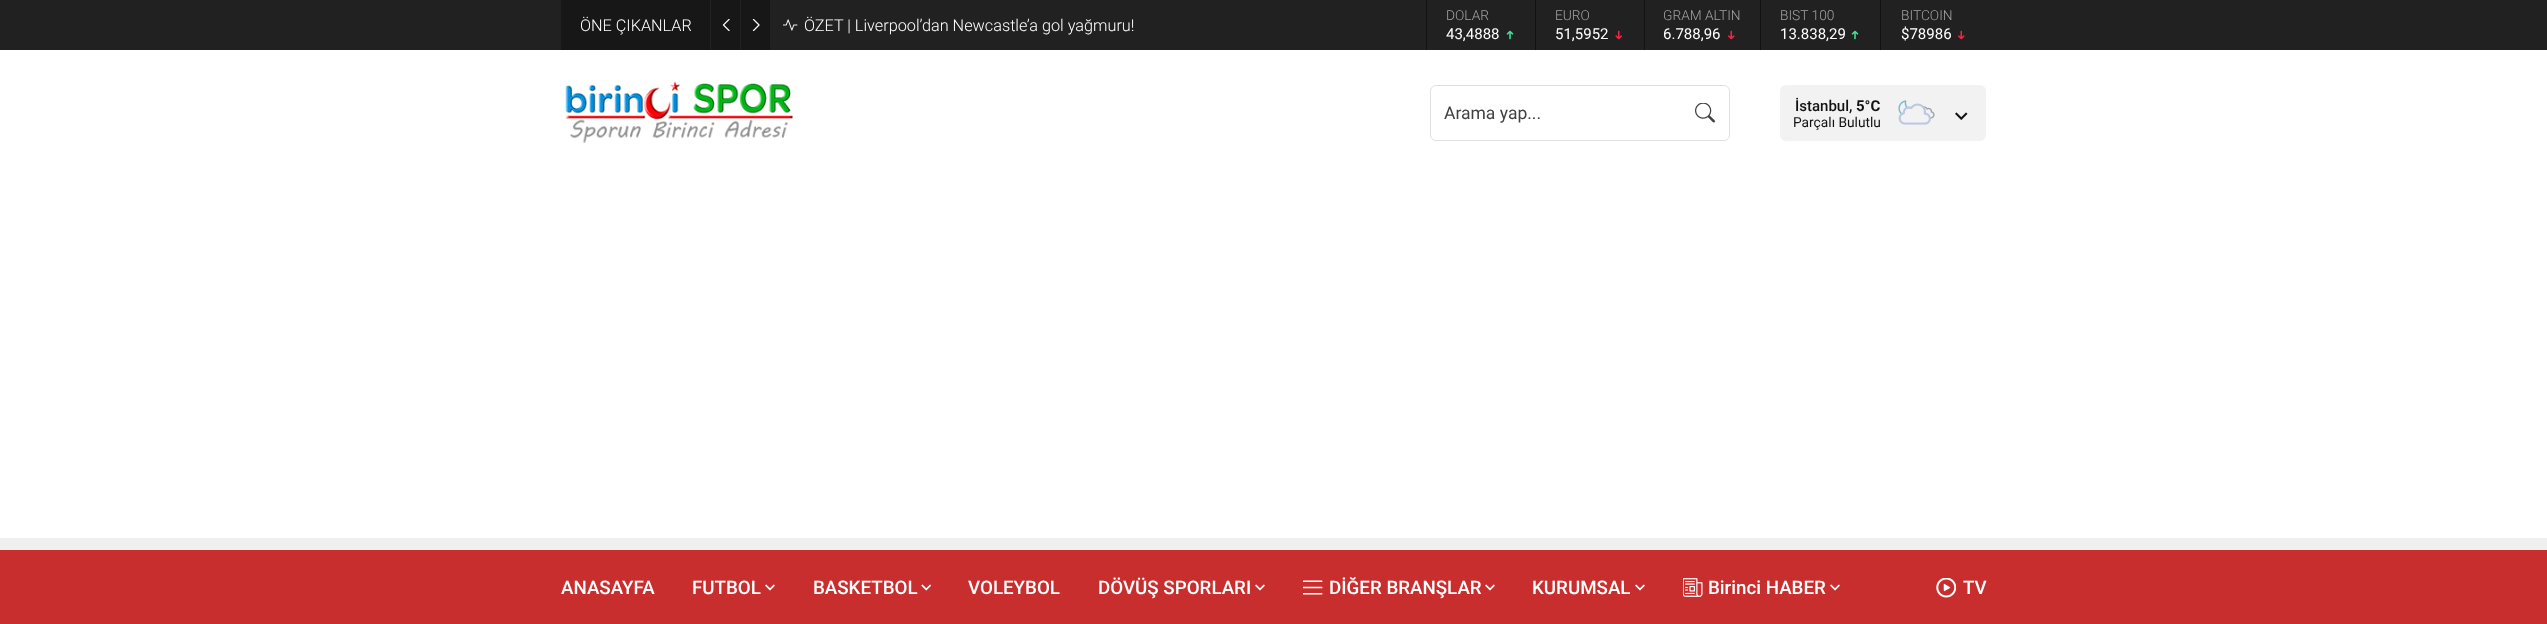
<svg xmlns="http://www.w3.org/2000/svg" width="2547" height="624">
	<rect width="100%" height="100%" fill="#EFEFEF" />
	<rect x="0" y="0" width="2547" height="50" fill="#212121" />
	<rect x="561" y="0" width="209" height="50" fill="#171717" />
	<text x="580" y="31" font-family="Roboto" font-size="16.25" font-weight="300" fill="#FFFFFF">ÖNE ÇIKANLAR</text>
	<rect x="710" y="0" width="1" height="50" fill="#232323" />
	<image x="722" y="19" width="8" height="12" href="assets/img1.png" />
	<rect x="740" y="0" width="1" height="50" fill="#232323" />
	<image x="752" y="19" width="8" height="12" href="assets/img2.png" />
	<image x="783" y="19" width="15" height="12" href="assets/img3.png" />
	<text x="804" y="31" font-family="Roboto" font-size="16.25" font-weight="300" fill="#FFFFFF">ÖZET | Liverpool’dan Newcastle’a gol yağmuru!</text>
	<rect x="1426" y="0" width="1" height="50" fill="#121212" />
	<text x="1446" y="20" font-family="Roboto" font-size="13.75" font-weight="300" fill="#A2A2A2">DOLAR</text>
	<text x="1446" y="39" font-family="Roboto" font-size="15" fill="#FFFFFF">43,4888</text>
	<image x="1506" y="30" width="8" height="10" href="assets/img4.png" />
	<rect x="1535" y="0" width="1" height="50" fill="#121212" />
	<text x="1555" y="20" font-family="Roboto" font-size="13.75" font-weight="300" fill="#A2A2A2">EURO</text>
	<text x="1555" y="39" font-family="Roboto" font-size="15" fill="#FFFFFF">51,5952</text>
	<image x="1615" y="30" width="7" height="10" href="assets/img5.png" />
	<rect x="1644" y="0" width="1" height="50" fill="#121212" />
	<text x="1663" y="20" font-family="Roboto" font-size="13.75" font-weight="300" fill="#A2A2A2">GRAM ALTIN</text>
	<text x="1663" y="39" font-family="Roboto" font-size="15" fill="#FFFFFF">6.788,96</text>
	<image x="1728" y="30" width="7" height="10" href="assets/img6.png" />
	<rect x="1760" y="0" width="1" height="50" fill="#121212" />
	<text x="1780" y="20" font-family="Roboto" font-size="13.75" font-weight="300" fill="#A2A2A2">BIST 100</text>
	<text x="1780" y="39" font-family="Roboto" font-size="15" fill="#FFFFFF">13.838,29</text>
	<image x="1851" y="30" width="8" height="10" href="assets/img4.png" />
	<rect x="1880" y="0" width="1" height="50" fill="#121212" />
	<text x="1901" y="20" font-family="Roboto" font-size="13.75" font-weight="300" fill="#A2A2A2">BITCOIN</text>
	<text x="1901" y="39" font-family="Roboto" font-size="15" fill="#FFFFFF">$78986</text>
	<image x="1958" y="30" width="7" height="10" href="assets/img6.png" />
	<rect x="0" y="50" width="2547" height="488" fill="#FFFFFF" />
	<image x="565" y="81" width="228" height="62" href="assets/img7.png" />
	<rect x="1430.5" y="85.5" width="299" height="55" rx="5.5" fill="none" stroke="#E0E0E0" />
	<text x="1444" y="119" font-family="Roboto" font-size="17.5" fill="#414141">Arama yap...</text>
	<image x="1695" y="103" width="20" height="20" href="assets/img8.png" />
	<rect x="1780" y="85" width="206" height="56" rx="6" fill="#F2F2F2" />
	<text x="1795" y="111" font-family="Roboto" font-size="15" font-weight="500" fill="#121212">İstanbul,</text>
	<text x="1856" y="111" font-family="Roboto" font-size="15" font-weight="700" fill="#121212">5°C</text>
	<text x="1793" y="127" font-family="Roboto" font-size="13.75" fill="#121212">Parçalı Bulutlu</text>
	<image x="1898" y="100" width="37" height="25" href="assets/img9.png" />
	<image x="1955" y="112" width="13" height="8" href="assets/img10.png" />
	<rect x="0" y="550" width="2547" height="74" fill="#C92E2F" />
	<g font-family="Roboto" font-size="18.75" font-weight="500" fill="#FFFFFF">
		<text x="561" y="594">ANASAYFA</text>
		<text x="692" y="594">FUTBOL</text>
	</g>
	<image x="765" y="584" width="10" height="7" href="assets/img11.png" />
	<text x="813" y="594" font-family="Roboto" font-size="18.75" font-weight="500" fill="#FFFFFF">BASKETBOL</text>
	<image x="921" y="584" width="10" height="7" href="assets/img12.png" />
	<g font-family="Roboto" font-size="18.75" font-weight="500" fill="#FFFFFF">
		<text x="968" y="594">VOLEYBOL</text>
		<text x="1098" y="594">DÖVÜŞ SPORLARI</text>
	</g>
	<image x="1255" y="584" width="10" height="7" href="assets/img11.png" />
	<image x="1303" y="580" width="20" height="15" href="assets/img13.png" />
	<text x="1329" y="594" font-family="Roboto" font-size="18.75" font-weight="500" fill="#FFFFFF">DİĞER BRANŞLAR</text>
	<image x="1485" y="584" width="10" height="7" href="assets/img11.png" />
	<text x="1532" y="594" font-family="Roboto" font-size="18.75" font-weight="500" fill="#FFFFFF">KURUMSAL</text>
	<image x="1635" y="584" width="10" height="7" href="assets/img11.png" />
	<image x="1683" y="578" width="20" height="19" href="assets/img14.png" />
	<text x="1708" y="594" font-family="Roboto" font-size="18.75" font-weight="500" fill="#FFFFFF">Birinci HABER</text>
	<image x="1830" y="584" width="10" height="7" href="assets/img11.png" />
	<image x="1936" y="578" width="20" height="20" href="assets/img15.png" />
	<text x="1963" y="594" font-family="Roboto" font-size="18.75" font-weight="500" fill="#FFFFFF">TV</text>
</svg>
